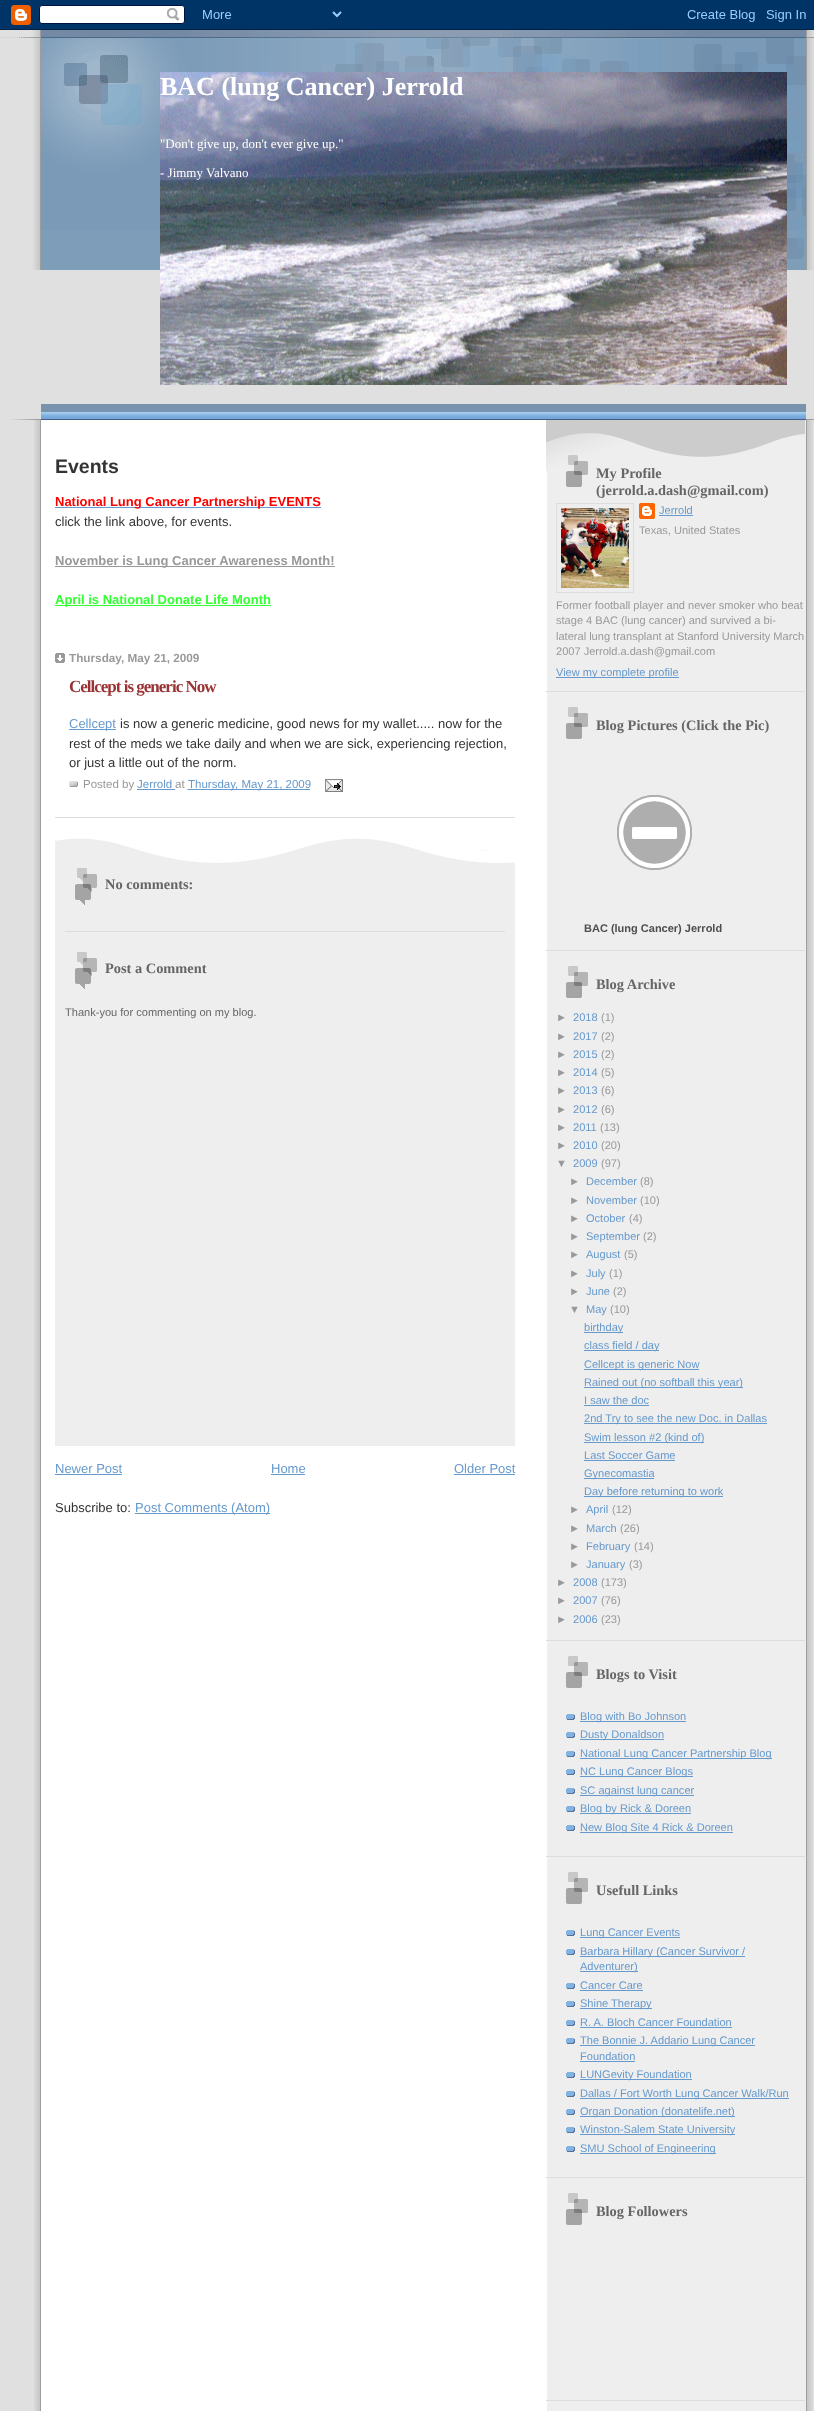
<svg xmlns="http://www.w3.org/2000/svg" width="814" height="2411">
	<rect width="100%" height="100%" fill="#E0E0E0" />
	<image x="0" y="0" width="814" height="30" href="assets/img1.png" />
	<image x="34" y="420" width="779" height="1991" href="assets/img2.png" />
	<image x="0" y="30" width="814" height="240" href="assets/img3.png" />
	<image x="11" y="404" width="803" height="16" href="assets/img4.png" />
	<image x="160" y="72" width="627" height="313" href="assets/img5.png" />
	<text x="160" y="95" font-family="Liberation Serif" font-size="26" font-weight="700" fill="#FFFFFF">BAC (lung Cancer) Jerrold</text>
	<g font-family="Liberation Serif" font-size="13" fill="#FFFFFF">
		<text x="160" y="148">"Don't give up, don't ever give up."</text>
		<text x="160" y="177">- Jimmy Valvano</text>
	</g>
	<text x="55" y="473" font-family="Liberation Sans" font-size="19.5" font-weight="700" fill="#333333">Events</text>
	<rect x="55" y="507" width="266" height="1" fill="#6699CC" />
	<text x="55" y="506" font-family="Liberation Sans" font-size="13" font-weight="700" fill="#FF0000">National Lung Cancer Partnership EVENTS</text>
	<text x="55" y="526" font-family="Liberation Sans" font-size="13" fill="#333333">click the link above, for events.</text>
	<rect x="55" y="566" width="280" height="1" fill="#999999" />
	<text x="55" y="565" font-family="Liberation Sans" font-size="13" font-weight="700" fill="#999999">November is Lung Cancer Awareness Month!</text>
	<rect x="55" y="605" width="216" height="1" fill="#33FF33" />
	<text x="55" y="604" font-family="Liberation Sans" font-size="13" font-weight="700" fill="#33FF33">April is National Donate Life Month</text>
	<image x="55" y="653" width="10" height="10" href="assets/img6.png" />
	<text x="69" y="662" font-family="Liberation Sans" font-size="11.75" font-weight="700" fill="#999999">Thursday, May 21, 2009</text>
	<rect x="55" y="817" width="460" height="1" fill="#DDDDDD" />
	<text x="69" y="692" font-family="Liberation Serif" font-size="17" font-weight="700" letter-spacing="-1" fill="#993333">Cellcept is generic Now</text>
	<rect x="69" y="729" width="47" height="1" fill="#6699CC" />
	<text x="69" y="728" font-family="Liberation Sans" font-size="13" fill="#6699CC">Cellcept</text>
	<g font-family="Liberation Sans" font-size="13" fill="#333333">
		<text x="120" y="728">is now a generic medicine, good news for my wallet..... now for the</text>
		<text x="69" y="748">rest of the meds we take daily and when we are sick, experiencing rejection,</text>
		<text x="69" y="767">or just a little out of the norm.</text>
	</g>
	<image x="69" y="781" width="9" height="6" href="assets/img7.png" />
	<text x="83" y="788" font-family="Liberation Sans" font-size="11.5" fill="#999999">Posted by</text>
	<text x="137" y="788" font-family="Liberation Sans" font-size="11.5" fill="#6699CC">Jerrold</text>
	<rect x="137" y="789" width="38" height="1" fill="#6699CC" />
	<text x="175" y="788" font-family="Liberation Sans" font-size="11.5" fill="#999999">at</text>
	<path d="M187.5 789.5H310" fill="none" stroke="#6699CC" stroke-dasharray="1 1" />
	<rect x="188" y="789" width="122" height="1" fill="#6699CC" />
	<text x="188" y="788" font-family="Liberation Sans" font-size="11.5" fill="#6699CC">Thursday, May 21, 2009</text>
	<image x="325" y="779" width="18" height="13" href="assets/img8.png" />
	<rect x="55" y="839" width="460" height="607" fill="#EEEEEE" />
	<image x="55" y="838" width="460" height="25" href="assets/img9.png" />
	<image x="75" y="868" width="22" height="37" href="assets/img10.png" />
	<text x="105" y="889" font-family="Liberation Serif" font-size="14.4" font-weight="700" fill="#666666">No comments:</text>
	<rect x="65" y="931" width="440" height="1" fill="#DDDDDD" />
	<image x="75" y="952" width="22" height="37" href="assets/img10.png" />
	<text x="105" y="973" font-family="Liberation Serif" font-size="14.4" font-weight="700" fill="#666666">Post a Comment</text>
	<text x="65" y="1016" font-family="Liberation Sans" font-size="11.05" fill="#666666">Thank-you for commenting on my blog.</text>
	<text x="55" y="1473" font-family="Liberation Sans" font-size="13" fill="#6699CC">Newer Post</text>
	<rect x="55" y="1474" width="67" height="1" fill="#6699CC" />
	<text x="271" y="1473" font-family="Liberation Sans" font-size="13" fill="#6699CC">Home</text>
	<rect x="271" y="1474" width="34" height="1" fill="#6699CC" />
	<text x="454" y="1473" font-family="Liberation Sans" font-size="13" fill="#6699CC">Older Post</text>
	<rect x="454" y="1474" width="61" height="1" fill="#6699CC" />
	<text x="55" y="1512" font-family="Liberation Sans" font-size="13" fill="#333333">Subscribe to:</text>
	<rect x="135" y="1513" width="135" height="1" fill="#6699CC" />
	<text x="135" y="1512" font-family="Liberation Sans" font-size="13" fill="#6699CC">Post Comments (Atom)</text>
	<image x="546" y="420" width="259" height="51" href="assets/img11.png" />
	<rect x="546" y="691" width="259" height="1" fill="#DDDDDD" />
	<image x="566" y="455" width="22" height="32" href="assets/img12.png" />
	<g font-family="Liberation Serif" font-size="14.4" font-weight="700" fill="#666666">
		<text x="596" y="478">My Profile</text>
		<text x="596" y="495">(jerrold.a.dash@gmail.com)</text>
	</g>
	<rect x="556.5" y="503.5" width="77" height="89" fill="none" stroke="#DDDDDD" />
	<image x="561" y="508" width="68" height="80" href="assets/img13.png" />
	<image x="639" y="503" width="16" height="16" href="assets/img14.png" />
	<text x="659" y="514" font-family="Liberation Sans" font-size="11.05" fill="#6699CC">Jerrold</text>
	<rect x="659" y="515" width="34" height="1" fill="#6699CC" />
	<g font-family="Liberation Sans" font-size="11.05" fill="#999999">
		<text x="639" y="534">Texas, United States</text>
		<text x="556" y="609">Former football player and never smoker who beat</text>
		<text x="556" y="624">stage 4 BAC (lung cancer) and survived a bi-</text>
		<text x="556" y="640">lateral lung transplant at Stanford University March</text>
		<text x="556" y="655">2007 Jerrold.a.dash@gmail.com</text>
	</g>
	<rect x="556" y="677" width="123" height="1" fill="#6699CC" />
	<text x="556" y="676" font-family="Liberation Sans" font-size="11.05" fill="#6699CC">View my complete profile</text>
	<rect x="546" y="950" width="259" height="1" fill="#DDDDDD" />
	<image x="566" y="707" width="22" height="32" href="assets/img15.png" />
	<text x="596" y="730" font-family="Liberation Serif" font-size="14.4" font-weight="700" fill="#666666">Blog Pictures (Click the Pic)</text>
	<image x="617" y="795" width="75" height="75" href="assets/img16.png" />
	<text x="584" y="932" font-family="Liberation Sans" font-size="11" font-weight="700" fill="#4D4D4D">BAC (lung Cancer) Jerrold</text>
	<rect x="546" y="1640" width="259" height="1" fill="#DDDDDD" />
	<image x="566" y="966" width="22" height="32" href="assets/img15.png" />
	<text x="596" y="989" font-family="Liberation Serif" font-size="14.4" font-weight="700" fill="#666666">Blog Archive</text>
	<text x="556" y="1021" font-family="Liberation Sans" font-size="11.05" fill="#999999">►</text>
	<text x="573" y="1021" font-family="Liberation Sans" font-size="11.05" fill="#6699CC">2018</text>
	<g font-family="Liberation Sans" font-size="11.05" fill="#999999">
		<text x="601" y="1021">(1)</text>
		<text x="556" y="1040">►</text>
	</g>
	<text x="573" y="1040" font-family="Liberation Sans" font-size="11.05" fill="#6699CC">2017</text>
	<g font-family="Liberation Sans" font-size="11.05" fill="#999999">
		<text x="601" y="1040">(2)</text>
		<text x="556" y="1058">►</text>
	</g>
	<text x="573" y="1058" font-family="Liberation Sans" font-size="11.05" fill="#6699CC">2015</text>
	<g font-family="Liberation Sans" font-size="11.05" fill="#999999">
		<text x="601" y="1058">(2)</text>
		<text x="556" y="1076">►</text>
	</g>
	<text x="573" y="1076" font-family="Liberation Sans" font-size="11.05" fill="#6699CC">2014</text>
	<g font-family="Liberation Sans" font-size="11.05" fill="#999999">
		<text x="601" y="1076">(5)</text>
		<text x="556" y="1094">►</text>
	</g>
	<text x="573" y="1094" font-family="Liberation Sans" font-size="11.05" fill="#6699CC">2013</text>
	<g font-family="Liberation Sans" font-size="11.05" fill="#999999">
		<text x="601" y="1094">(6)</text>
		<text x="556" y="1113">►</text>
	</g>
	<text x="573" y="1113" font-family="Liberation Sans" font-size="11.05" fill="#6699CC">2012</text>
	<g font-family="Liberation Sans" font-size="11.05" fill="#999999">
		<text x="601" y="1113">(6)</text>
		<text x="556" y="1131">►</text>
	</g>
	<text x="573" y="1131" font-family="Liberation Sans" font-size="11.05" fill="#6699CC">2011</text>
	<g font-family="Liberation Sans" font-size="11.05" fill="#999999">
		<text x="600" y="1131">(13)</text>
		<text x="556" y="1149">►</text>
	</g>
	<text x="573" y="1149" font-family="Liberation Sans" font-size="11.05" fill="#6699CC">2010</text>
	<g font-family="Liberation Sans" font-size="11.05" fill="#999999">
		<text x="601" y="1149">(20)</text>
		<text x="556" y="1167">▼</text>
	</g>
	<text x="573" y="1167" font-family="Liberation Sans" font-size="11.05" fill="#6699CC">2009</text>
	<g font-family="Liberation Sans" font-size="11.05" fill="#999999">
		<text x="601" y="1167">(97)</text>
		<text x="569" y="1185">►</text>
	</g>
	<text x="586" y="1185" font-family="Liberation Sans" font-size="11.05" fill="#6699CC">December</text>
	<g font-family="Liberation Sans" font-size="11.05" fill="#999999">
		<text x="640" y="1185">(8)</text>
		<text x="569" y="1204">►</text>
	</g>
	<text x="586" y="1204" font-family="Liberation Sans" font-size="11.05" fill="#6699CC">November</text>
	<g font-family="Liberation Sans" font-size="11.05" fill="#999999">
		<text x="640" y="1204">(10)</text>
		<text x="569" y="1222">►</text>
	</g>
	<text x="586" y="1222" font-family="Liberation Sans" font-size="11.05" fill="#6699CC">October</text>
	<g font-family="Liberation Sans" font-size="11.05" fill="#999999">
		<text x="629" y="1222">(4)</text>
		<text x="569" y="1240">►</text>
	</g>
	<text x="586" y="1240" font-family="Liberation Sans" font-size="11.05" fill="#6699CC">September</text>
	<g font-family="Liberation Sans" font-size="11.05" fill="#999999">
		<text x="643" y="1240">(2)</text>
		<text x="569" y="1258">►</text>
	</g>
	<text x="586" y="1258" font-family="Liberation Sans" font-size="11.05" fill="#6699CC">August</text>
	<g font-family="Liberation Sans" font-size="11.05" fill="#999999">
		<text x="624" y="1258">(5)</text>
		<text x="569" y="1277">►</text>
	</g>
	<text x="586" y="1277" font-family="Liberation Sans" font-size="11.05" fill="#6699CC">July</text>
	<g font-family="Liberation Sans" font-size="11.05" fill="#999999">
		<text x="609" y="1277">(1)</text>
		<text x="569" y="1295">►</text>
	</g>
	<text x="586" y="1295" font-family="Liberation Sans" font-size="11.05" fill="#6699CC">June</text>
	<g font-family="Liberation Sans" font-size="11.05" fill="#999999">
		<text x="613" y="1295">(2)</text>
		<text x="569" y="1313">▼</text>
	</g>
	<text x="586" y="1313" font-family="Liberation Sans" font-size="11.05" fill="#6699CC">May</text>
	<text x="610" y="1313" font-family="Liberation Sans" font-size="11.05" fill="#999999">(10)</text>
	<rect x="584" y="1332" width="39" height="1" fill="#6699CC" />
	<text x="584" y="1331" font-family="Liberation Sans" font-size="11.05" fill="#6699CC">birthday</text>
	<rect x="584" y="1350" width="75" height="1" fill="#6699CC" />
	<text x="584" y="1349" font-family="Liberation Sans" font-size="11.05" fill="#6699CC">class field / day</text>
	<rect x="584" y="1369" width="115" height="1" fill="#6699CC" />
	<text x="584" y="1368" font-family="Liberation Sans" font-size="11.05" fill="#6699CC">Cellcept is generic Now</text>
	<rect x="584" y="1387" width="159" height="1" fill="#6699CC" />
	<g font-family="Liberation Sans" font-size="11.05" fill="#6699CC">
		<text x="584" y="1386">Rained out (no softball this year)</text>
		<text x="584" y="1404">I saw the doc</text>
	</g>
	<rect x="584" y="1405" width="65" height="1" fill="#6699CC" />
	<rect x="584" y="1423" width="183" height="1" fill="#6699CC" />
	<text x="584" y="1422" font-family="Liberation Sans" font-size="11.05" fill="#6699CC">2nd Try to see the new Doc. in Dallas</text>
	<rect x="584" y="1442" width="120" height="1" fill="#6699CC" />
	<g font-family="Liberation Sans" font-size="11.05" fill="#6699CC">
		<text x="584" y="1441">Swim lesson #2 (kind of)</text>
		<text x="584" y="1459">Last Soccer Game</text>
	</g>
	<rect x="584" y="1460" width="91" height="1" fill="#6699CC" />
	<rect x="584" y="1478" width="70" height="1" fill="#6699CC" />
	<text x="584" y="1477" font-family="Liberation Sans" font-size="11.05" fill="#6699CC">Gynecomastia</text>
	<rect x="584" y="1496" width="139" height="1" fill="#6699CC" />
	<text x="584" y="1495" font-family="Liberation Sans" font-size="11.05" fill="#6699CC">Day before returning to work</text>
	<text x="569" y="1513" font-family="Liberation Sans" font-size="11.05" fill="#999999">►</text>
	<text x="586" y="1513" font-family="Liberation Sans" font-size="11.05" fill="#6699CC">April</text>
	<g font-family="Liberation Sans" font-size="11.05" fill="#999999">
		<text x="612" y="1513">(12)</text>
		<text x="569" y="1532">►</text>
	</g>
	<text x="586" y="1532" font-family="Liberation Sans" font-size="11.05" fill="#6699CC">March</text>
	<g font-family="Liberation Sans" font-size="11.05" fill="#999999">
		<text x="620" y="1532">(26)</text>
		<text x="569" y="1550">►</text>
	</g>
	<text x="586" y="1550" font-family="Liberation Sans" font-size="11.05" fill="#6699CC">February</text>
	<g font-family="Liberation Sans" font-size="11.05" fill="#999999">
		<text x="634" y="1550">(14)</text>
		<text x="569" y="1568">►</text>
	</g>
	<text x="586" y="1568" font-family="Liberation Sans" font-size="11.05" fill="#6699CC">January</text>
	<g font-family="Liberation Sans" font-size="11.05" fill="#999999">
		<text x="629" y="1568">(3)</text>
		<text x="556" y="1586">►</text>
	</g>
	<text x="573" y="1586" font-family="Liberation Sans" font-size="11.05" fill="#6699CC">2008</text>
	<g font-family="Liberation Sans" font-size="11.05" fill="#999999">
		<text x="601" y="1586">(173)</text>
		<text x="556" y="1604">►</text>
	</g>
	<text x="573" y="1604" font-family="Liberation Sans" font-size="11.05" fill="#6699CC">2007</text>
	<g font-family="Liberation Sans" font-size="11.05" fill="#999999">
		<text x="601" y="1604">(76)</text>
		<text x="556" y="1623">►</text>
	</g>
	<text x="573" y="1623" font-family="Liberation Sans" font-size="11.05" fill="#6699CC">2006</text>
	<text x="601" y="1623" font-family="Liberation Sans" font-size="11.05" fill="#999999">(23)</text>
	<rect x="546" y="1856" width="259" height="1" fill="#DDDDDD" />
	<image x="566" y="1656" width="22" height="32" href="assets/img15.png" />
	<text x="596" y="1679" font-family="Liberation Serif" font-size="14.4" font-weight="700" fill="#666666">Blogs to Visit</text>
	<image x="566" y="1714" width="9" height="6" href="assets/img17.png" />
	<rect x="580" y="1721" width="106" height="1" fill="#6699CC" />
	<text x="580" y="1720" font-family="Liberation Sans" font-size="11.05" fill="#6699CC">Blog with Bo Johnson</text>
	<image x="566" y="1732" width="9" height="6" href="assets/img17.png" />
	<rect x="580" y="1739" width="84" height="1" fill="#6699CC" />
	<text x="580" y="1738" font-family="Liberation Sans" font-size="11.05" fill="#6699CC">Dusty Donaldson</text>
	<image x="566" y="1751" width="9" height="6" href="assets/img17.png" />
	<rect x="580" y="1758" width="192" height="1" fill="#6699CC" />
	<text x="580" y="1757" font-family="Liberation Sans" font-size="11.05" fill="#6699CC">National Lung Cancer Partnership Blog</text>
	<image x="566" y="1769" width="9" height="6" href="assets/img17.png" />
	<rect x="580" y="1776" width="113" height="1" fill="#6699CC" />
	<text x="580" y="1775" font-family="Liberation Sans" font-size="11.05" fill="#6699CC">NC Lung Cancer Blogs</text>
	<image x="566" y="1788" width="9" height="6" href="assets/img17.png" />
	<rect x="580" y="1795" width="114" height="1" fill="#6699CC" />
	<text x="580" y="1794" font-family="Liberation Sans" font-size="11.05" fill="#6699CC">SC against lung cancer</text>
	<image x="566" y="1806" width="9" height="6" href="assets/img17.png" />
	<rect x="580" y="1813" width="111" height="1" fill="#6699CC" />
	<text x="580" y="1812" font-family="Liberation Sans" font-size="11.05" fill="#6699CC">Blog by Rick &amp; Doreen</text>
	<image x="566" y="1825" width="9" height="6" href="assets/img17.png" />
	<rect x="580" y="1832" width="153" height="1" fill="#6699CC" />
	<text x="580" y="1831" font-family="Liberation Sans" font-size="11.05" fill="#6699CC">New Blog Site 4 Rick &amp; Doreen</text>
	<rect x="546" y="2177" width="259" height="1" fill="#DDDDDD" />
	<image x="566" y="1872" width="22" height="32" href="assets/img15.png" />
	<text x="596" y="1895" font-family="Liberation Serif" font-size="14.4" font-weight="700" fill="#666666">Usefull Links</text>
	<image x="566" y="1930" width="9" height="6" href="assets/img17.png" />
	<rect x="580" y="1937" width="100" height="1" fill="#6699CC" />
	<text x="580" y="1936" font-family="Liberation Sans" font-size="11.05" fill="#6699CC">Lung Cancer Events</text>
	<image x="566" y="1949" width="9" height="6" href="assets/img17.png" />
	<rect x="580" y="1956" width="165" height="1" fill="#6699CC" />
	<text x="580" y="1955" font-family="Liberation Sans" font-size="11.05" fill="#6699CC">Barbara Hillary (Cancer Survivor /</text>
	<rect x="580" y="1971" width="58" height="1" fill="#6699CC" />
	<text x="580" y="1970" font-family="Liberation Sans" font-size="11.05" fill="#6699CC">Adventurer)</text>
	<image x="566" y="1983" width="9" height="6" href="assets/img17.png" />
	<text x="580" y="1989" font-family="Liberation Sans" font-size="11.05" fill="#6699CC">Cancer Care</text>
	<rect x="580" y="1990" width="63" height="1" fill="#6699CC" />
	<image x="566" y="2001" width="9" height="6" href="assets/img17.png" />
	<rect x="580" y="2008" width="72" height="1" fill="#6699CC" />
	<text x="580" y="2007" font-family="Liberation Sans" font-size="11.05" fill="#6699CC">Shine Therapy</text>
	<image x="566" y="2020" width="9" height="6" href="assets/img17.png" />
	<text x="580" y="2026" font-family="Liberation Sans" font-size="11.05" fill="#6699CC">R. A. Bloch Cancer Foundation</text>
	<rect x="580" y="2027" width="152" height="1" fill="#6699CC" />
	<image x="566" y="2038" width="9" height="6" href="assets/img17.png" />
	<rect x="580" y="2045" width="175" height="1" fill="#6699CC" />
	<g font-family="Liberation Sans" font-size="11.05" fill="#6699CC">
		<text x="580" y="2044">The Bonnie J. Addario Lung Cancer</text>
		<text x="580" y="2060">Foundation</text>
	</g>
	<rect x="580" y="2061" width="55" height="1" fill="#6699CC" />
	<image x="566" y="2072" width="9" height="6" href="assets/img17.png" />
	<rect x="580" y="2079" width="112" height="1" fill="#6699CC" />
	<text x="580" y="2078" font-family="Liberation Sans" font-size="11.05" fill="#6699CC">LUNGevity Foundation</text>
	<image x="566" y="2091" width="9" height="6" href="assets/img17.png" />
	<rect x="580" y="2098" width="209" height="1" fill="#6699CC" />
	<text x="580" y="2097" font-family="Liberation Sans" font-size="11.05" fill="#6699CC">Dallas / Fort Worth Lung Cancer Walk/Run</text>
	<image x="566" y="2109" width="9" height="6" href="assets/img17.png" />
	<rect x="580" y="2116" width="155" height="1" fill="#6699CC" />
	<text x="580" y="2115" font-family="Liberation Sans" font-size="11.05" fill="#6699CC">Organ Donation (donatelife.net)</text>
	<image x="566" y="2127" width="9" height="6" href="assets/img17.png" />
	<rect x="580" y="2134" width="155" height="1" fill="#6699CC" />
	<text x="580" y="2133" font-family="Liberation Sans" font-size="11.05" fill="#6699CC">Winston-Salem State University</text>
	<image x="566" y="2146" width="9" height="6" href="assets/img17.png" />
	<rect x="580" y="2153" width="136" height="1" fill="#6699CC" />
	<text x="580" y="2152" font-family="Liberation Sans" font-size="11.05" fill="#6699CC">SMU School of Engineering</text>
	<rect x="546" y="2400" width="259" height="1" fill="#DDDDDD" />
	<image x="566" y="2193" width="22" height="32" href="assets/img15.png" />
	<text x="596" y="2216" font-family="Liberation Serif" font-size="14.4" font-weight="700" fill="#666666">Blog Followers</text>
</svg>
